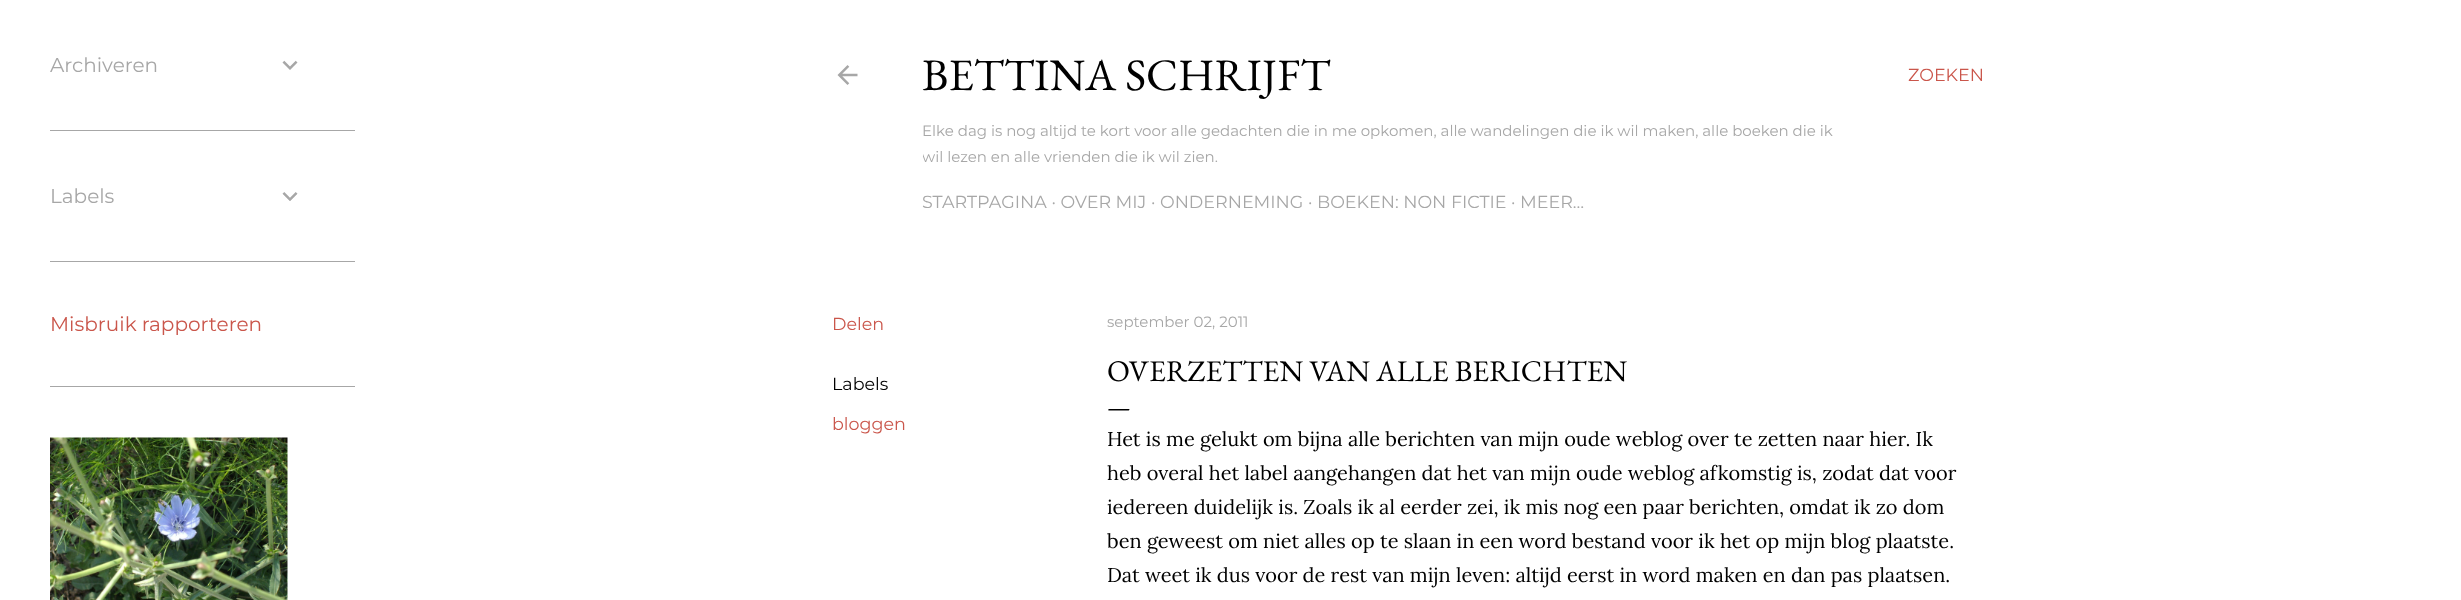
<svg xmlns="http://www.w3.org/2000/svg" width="2461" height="600">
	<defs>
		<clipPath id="clip1"><rect x="923" y="45" width="926" height="175" /></clipPath>
	</defs>
	<rect width="100%" height="100%" fill="#FFFFFF" />
	<text x="50" y="72" font-family="Montserrat" font-size="20" fill="#A7A7A7">Archiveren</text>
	<image x="282" y="60" width="16" height="10" href="assets/img1.png" />
	<rect x="50" y="130" width="305" height="1" fill="#A7A7A7" />
	<text x="50" y="203" font-family="Montserrat" font-size="20" fill="#A7A7A7">Labels</text>
	<image x="282" y="192" width="16" height="9" href="assets/img2.png" />
	<rect x="50" y="261" width="305" height="1" fill="#A7A7A7" />
	<text x="50" y="331" font-family="Montserrat" font-size="20" fill="#CA564B">Misbruik rapporteren</text>
	<rect x="50" y="386" width="305" height="1" fill="#A7A7A7" />
	<image x="50" y="437" width="238" height="163" href="assets/img3.png" />
	<image x="837" y="65" width="21" height="20" href="assets/img4.png" />
	<text x="922" y="90" font-family="EB Garamond" font-size="45" fill="#000000">BETTINA SCHRIJFT</text>
	<text x="922" y="136" font-family="Montserrat" font-size="15" fill="#A7A7A7">Elke dag is nog altijd te kort voor alle gedachten die in me opkomen, alle wandelingen die ik wil maken, alle boeken die ik</text>
	<g clip-path="url(#clip1)">
		<text x="922" y="162" font-family="Montserrat" font-size="15" fill="#A7A7A7">wil lezen en alle vrienden die ik wil zien.</text>
	</g>
	<text x="922" y="208" font-family="Montserrat" font-size="17.5" fill="#A7A7A7">STARTPAGINA · OVER MIJ · ONDERNEMING · BOEKEN: NON FICTIE · MEER…</text>
	<g font-family="Montserrat" font-size="17.5" fill="#CA564B">
		<text x="1908" y="81">ZOEKEN</text>
		<text x="832" y="330">Delen</text>
	</g>
	<text x="832" y="390" font-family="Montserrat" font-size="17.5" fill="#000000">Labels</text>
	<text x="832" y="430" font-family="Montserrat" font-size="17.5" fill="#CA564B">bloggen</text>
	<text x="1107" y="327" font-family="Montserrat" font-size="15" fill="#A7A7A7">september 02, 2011</text>
	<text x="1107" y="381" font-family="EB Garamond" font-size="30" fill="#000000">OVERZETTEN VAN ALLE BERICHTEN</text>
	<text x="1107" y="415" font-family="EB Garamond" font-size="25" fill="#000000">—</text>
	<g font-family="Lora" font-size="20" fill="#000000">
		<text x="1107" y="446">Het is me gelukt om bijna alle berichten van mijn oude weblog over te zetten naar hier. Ik</text>
		<text x="1107" y="480">heb overal het label aangehangen dat het van mijn oude weblog afkomstig is, zodat dat voor</text>
		<text x="1107" y="514">iedereen duidelijk is. Zoals ik al eerder zei, ik mis nog een paar berichten, omdat ik zo dom</text>
		<text x="1107" y="548">ben geweest om niet alles op te slaan in een word bestand voor ik het op mijn blog plaatste.</text>
		<text x="1107" y="582">Dat weet ik dus voor de rest van mijn leven: altijd eerst in word maken en dan pas plaatsen.</text>
	</g>
</svg>
